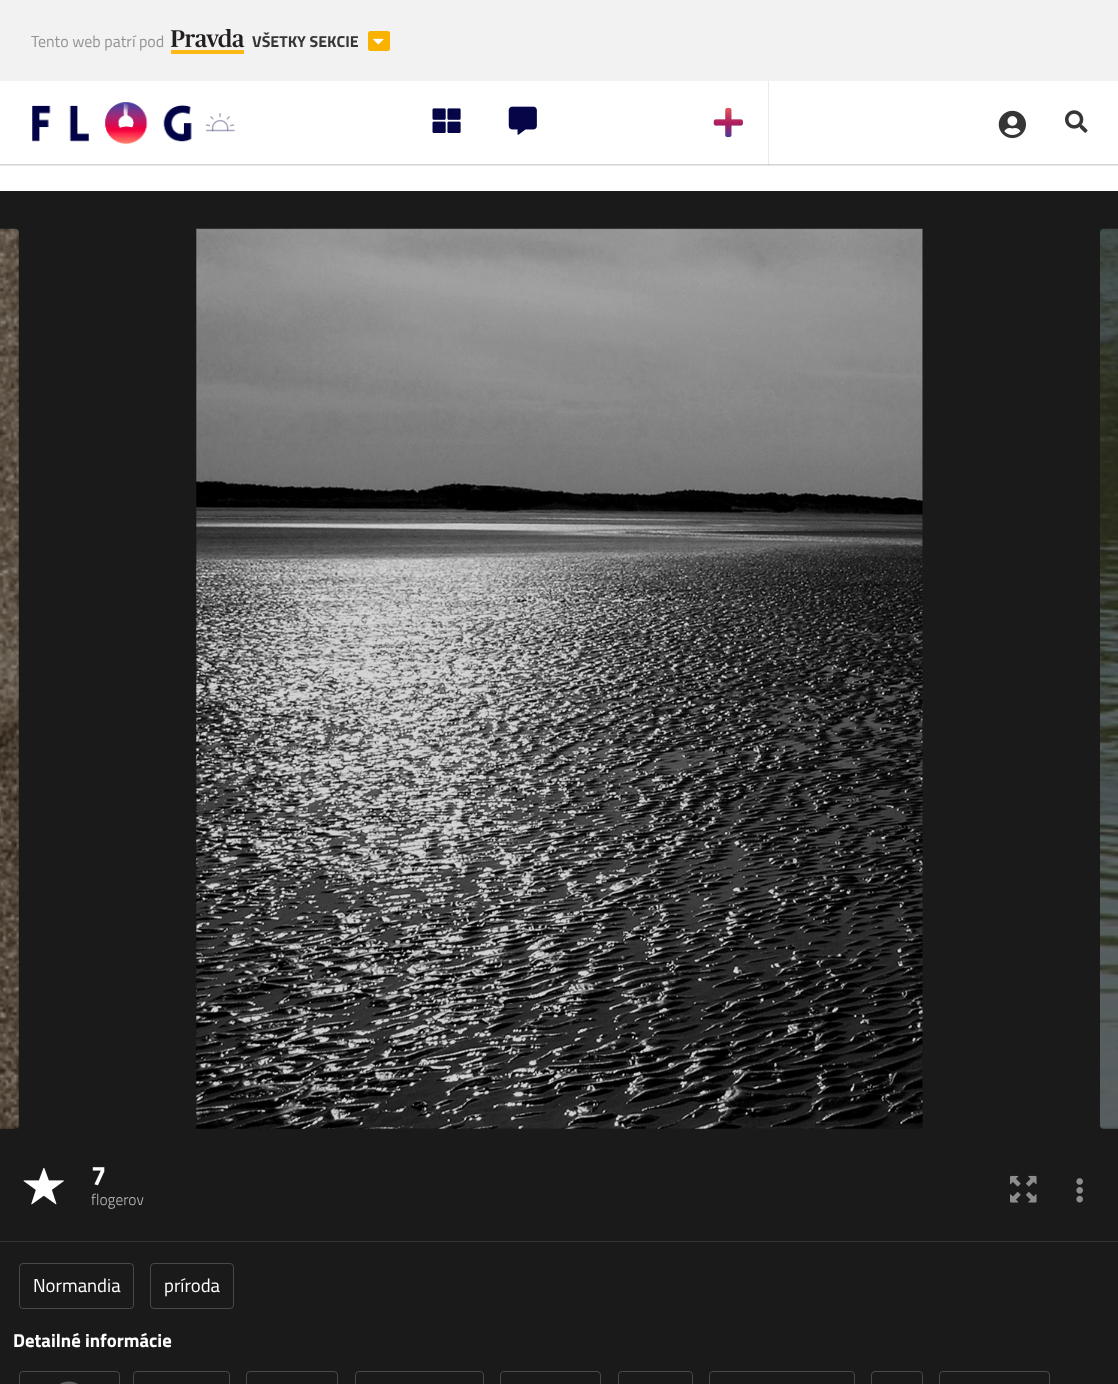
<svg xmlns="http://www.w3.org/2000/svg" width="1118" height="1384">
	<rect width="100%" height="100%" fill="#FFFFFF" />
	<rect x="0" y="164" width="1118" height="1" fill="#D7D7D7" />
	<rect x="0" y="0" width="1118" height="81" fill="#F2F2F2" />
	<text x="31" y="47" font-family="Titillium Web" font-size="16" fill="#949494">Tento web patrí pod</text>
	<image x="170" y="29" width="75" height="25" href="assets/img1.png" />
	<text x="252" y="47" font-family="Titillium Web" font-size="16" font-weight="700" fill="#363636">VŠETKY SEKCIE</text>
	<rect x="368" y="31" width="22" height="20" rx="2.5" fill="#FAB201" />
	<image x="373" y="38" width="11" height="7" href="assets/img2.png" />
	<image x="32" y="102" width="160" height="43" href="assets/img3.png" />
	<image x="123" y="108" width="5" height="8" href="assets/img5.png" />
	<image x="123" y="103" width="6" height="13" href="assets/img4.png" />
	<image x="206" y="113" width="29" height="19" href="assets/img6.png" />
	<image x="432" y="108" width="29" height="25" href="assets/img7.png" />
	<image x="508" y="106" width="29" height="29" href="assets/img8.png" />
	<rect x="768" y="81" width="1" height="84" fill="#EBEBEB" />
	<rect x="768" y="164" width="1" height="1" fill="#C7C7C7" />
	<image x="713" y="107" width="30" height="31" href="assets/img9.png" />
	<image x="998" y="110" width="28" height="29" href="assets/img10.png" />
	<image x="1065" y="110" width="23" height="23" href="assets/img11.png" />
	<rect x="-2" y="165" width="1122" height="1" fill="#000000" fill-opacity="0.1" filter="blur(0.5px)" />
	<rect x="0" y="191" width="1118" height="1193" fill="#1A1A1A" />
	<image x="0" y="228" width="19" height="901" href="assets/img12.png" />
	<image x="196" y="228" width="727" height="901" href="assets/img13.png" />
	<image x="1100" y="228" width="18" height="901" href="assets/img14.png" />
	<image x="23" y="1167" width="41" height="38" href="assets/img15.png" />
	<text x="91" y="1185" font-family="Titillium Web" font-size="27" font-weight="700" fill="#FFFFFF">7</text>
	<text x="91" y="1205" font-family="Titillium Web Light" font-size="15.5" font-weight="300" fill="#BABABA">flogerov</text>
	<image x="1010" y="1175" width="27" height="28" href="assets/img16.png" />
	<image x="1076" y="1178" width="7" height="25" href="assets/img17.png" />
	<rect x="0" y="1241" width="1118" height="1" fill="#313131" />
	<rect x="19.5" y="1263.5" width="114" height="45" rx="3.5" fill="none" stroke="#484848" />
	<text x="33" y="1292" font-family="Titillium Web" font-size="18.75" fill="#FFFFFF">Normandia</text>
	<rect x="150.5" y="1263.5" width="83" height="45" rx="3.5" fill="none" stroke="#484848" />
	<text x="164" y="1292" font-family="Titillium Web" font-size="18.75" fill="#FFFFFF">príroda</text>
	<text x="13" y="1347" font-family="Titillium Web" font-size="18.75" font-weight="700" fill="#FFFFFF">Detailné informácie</text>
	<rect x="19.5" y="1371.5" width="100" height="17" rx="3.5" fill="none" stroke="#484848" />
	<image x="60" y="1381" width="18" height="3" href="assets/img18.png" />
	<rect x="133.5" y="1371.5" width="96" height="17" rx="3.5" fill="none" stroke="#484848" />
	<rect x="246.5" y="1371.5" width="91" height="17" rx="3.5" fill="none" stroke="#484848" />
	<rect x="355.5" y="1371.5" width="128" height="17" rx="3.5" fill="none" stroke="#484848" />
	<rect x="500.5" y="1371.5" width="100" height="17" rx="3.5" fill="none" stroke="#484848" />
	<rect x="618.5" y="1371.5" width="74" height="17" rx="3.5" fill="none" stroke="#484848" />
	<rect x="709.5" y="1371.5" width="145" height="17" rx="3.5" fill="none" stroke="#484848" />
	<rect x="871.5" y="1371.5" width="51" height="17" rx="3.5" fill="none" stroke="#484848" />
	<rect x="939.5" y="1371.5" width="110" height="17" rx="3.5" fill="none" stroke="#484848" />
</svg>
